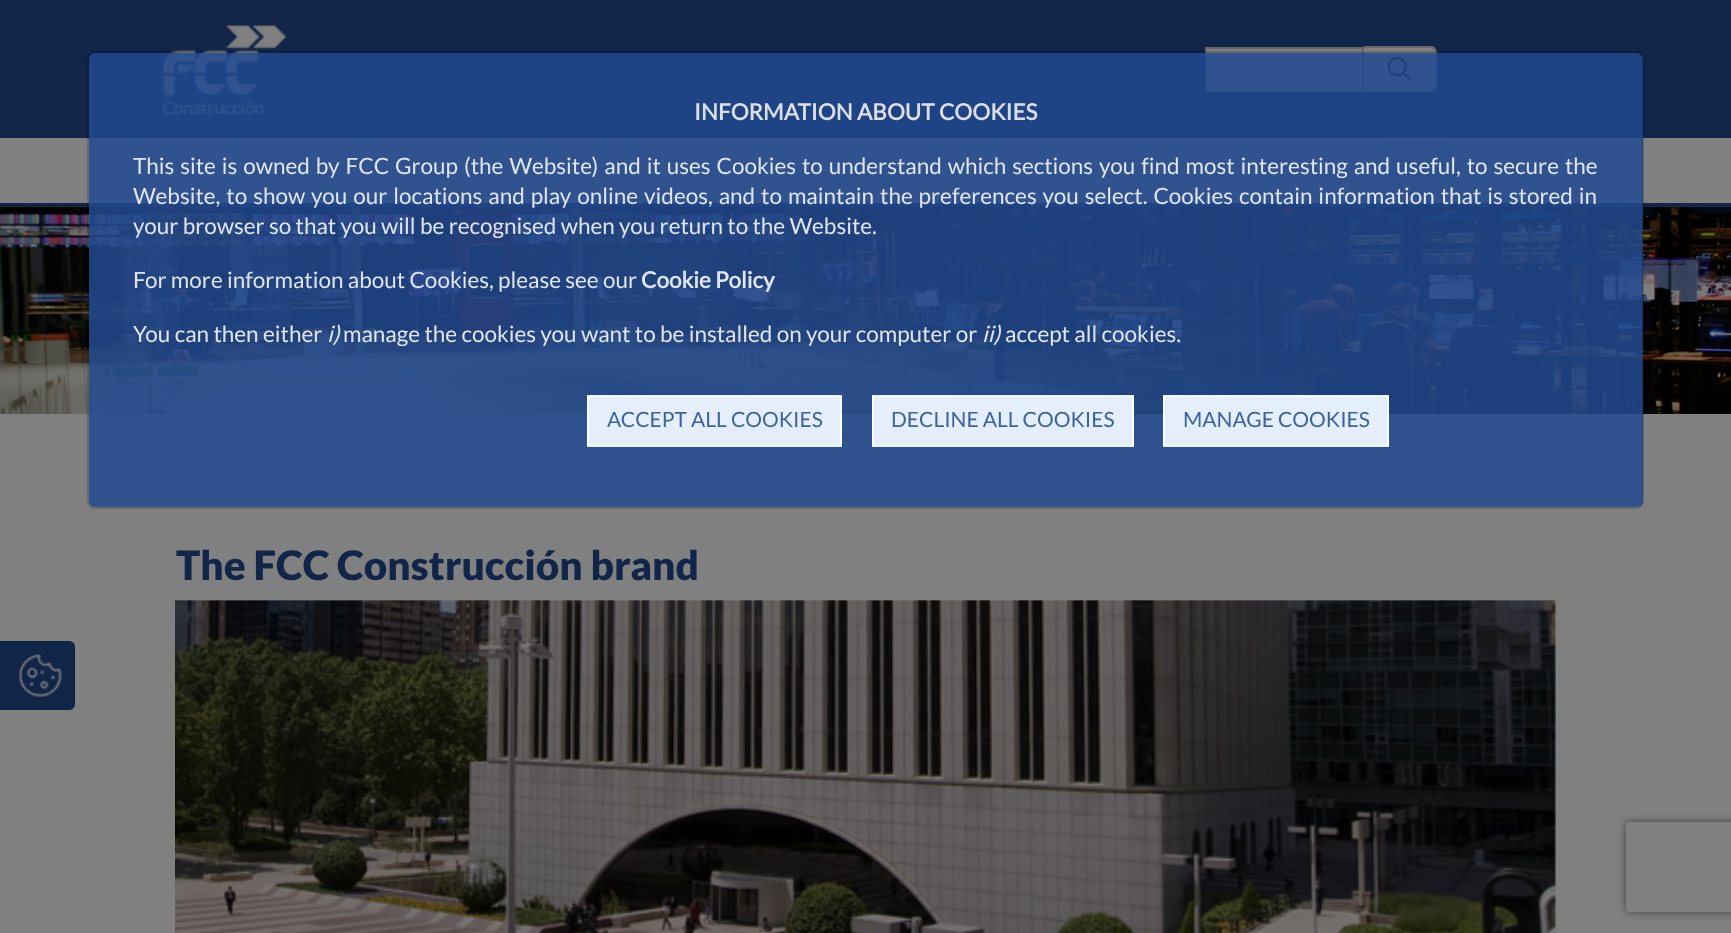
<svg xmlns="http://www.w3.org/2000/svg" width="1731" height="933">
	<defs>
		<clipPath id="clip1"><path d="M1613 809H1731V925H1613ZM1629 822H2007C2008.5 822 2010 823.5 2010 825V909C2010 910.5 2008.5 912 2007 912H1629C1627.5 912 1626 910.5 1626 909V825C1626 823.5 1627.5 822 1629 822Z" clip-rule="evenodd" /></clipPath>
	</defs>
	<rect width="100%" height="100%" fill="#808080" />
	<rect x="0" y="0" width="1731" height="138" fill="#112549" />
	<image x="162" y="25" width="125" height="89" href="assets/img1.png" />
	<rect x="1206" y="48" width="157" height="43" fill="#808080" stroke="#666666" stroke-width="2" />
	<path d="M1364 48H1431C1434 48 1436 50 1436 53V85C1436 88 1434 90 1431 90H1364Z" fill="#808080" />
	<path d="M1364 46H1431C1434 46 1437 49 1437 52V86C1437 89 1434 92 1431 92H1364ZM1364 48H1431C1433 48 1436 50 1436 52V86C1436 88 1433 90 1431 90H1364Z" fill="#676A6D" fill-rule="evenodd" />
	<image x="1388" y="57" width="24" height="24" href="assets/img2.png" />
	<rect x="0" y="203" width="1731" height="4" fill="#112549" />
	<rect x="1383" y="143" width="66" height="55" fill="#74777A" />
	<image x="0" y="207" width="1731" height="207" href="assets/img3.png" />
	<rect x="89" y="53" width="1554" height="454" rx="6" fill="#224A91" fill-opacity="0.85" />
	<rect x="88" y="52" width="1555" height="456" rx="7" fill="none" stroke="#000000" stroke-opacity="0.17" stroke-width="2" />
	<text x="694" y="120" font-family="Lato" font-size="22.5" font-weight="700" fill="#DBDEE4">INFORMATION ABOUT COOKIES</text>
	<g font-family="Lato" font-size="22.5" fill="#DFE5EE">
		<text x="133" y="174" word-spacing="1.6">This site is owned by FCC Group (the Website) and it uses Cookies to understand which sections you find most interesting and useful, to secure the</text>
		<text x="133" y="204" word-spacing="1.6">Website, to show you our locations and play online videos, and to maintain the preferences you select. Cookies contain information that is stored in</text>
		<text x="133" y="234">your browser so that you will be recognised when you return to the Website.</text>
		<text x="133" y="288">For more information about Cookies, please see our</text>
	</g>
	<text x="641" y="288" font-family="Lato" font-size="22.5" font-weight="700" fill="#DFE5EE">Cookie Policy</text>
	<text x="133" y="342" font-family="Lato" font-size="22.5" fill="#DFE5EE">You can then either</text>
	<text x="327" y="342" font-family="Lato" font-size="22.5" font-style="italic" fill="#DFE5EE">i)</text>
	<text x="343" y="342" font-family="Lato" font-size="22.5" fill="#DFE5EE">manage the cookies you want to be installed on your computer or</text>
	<text x="982" y="342" font-family="Lato" font-size="22.5" font-style="italic" fill="#DFE5EE">ii)</text>
	<text x="1005" y="342" font-family="Lato" font-size="22.5" fill="#DFE5EE">accept all cookies.</text>
	<rect x="587" y="395" width="255" height="52" fill="#50A2F5" fill-opacity="0.85" />
	<rect x="587" y="396" width="255" height="50" fill="#E4EFFB" />
	<rect x="588" y="396" width="253" height="50" fill="none" stroke="#FFFFFF" stroke-opacity="0.85" stroke-width="2" />
	<text x="607" y="427" font-family="Lato" font-size="21" fill="#3F63A1">ACCEPT ALL COOKIES</text>
	<rect x="872" y="395" width="262" height="52" fill="#50A2F5" fill-opacity="0.85" />
	<rect x="872" y="396" width="262" height="50" fill="#E4EFFB" />
	<rect x="873" y="396" width="260" height="50" fill="none" stroke="#FFFFFF" stroke-opacity="0.85" stroke-width="2" />
	<text x="891" y="427" font-family="Lato" font-size="21" fill="#3F63A1">DECLINE ALL COOKIES</text>
	<rect x="1163" y="395" width="226" height="52" fill="#50A2F5" fill-opacity="0.85" />
	<rect x="1163" y="396" width="226" height="50" fill="#FFFFFF" fill-opacity="0.85" />
	<rect x="1164" y="396" width="224" height="50" fill="none" stroke="#FFFFFF" stroke-opacity="0.85" stroke-width="2" />
	<text x="1183" y="427" font-family="Lato" font-size="21" fill="#3F63A1">MANAGE COOKIES</text>
	<text x="176" y="580" font-family="Lato" font-size="40.5" font-weight="900" fill="#112549">The FCC Construcción brand</text>
	<image x="175" y="600" width="1381" height="333" href="assets/img4.png" />
	<path d="M0 641H69C72.5 641 75 643.5 75 647V704C75 707.5 72.5 710 69 710H0Z" fill="#112549" />
	<image x="19" y="654" width="43" height="43" href="assets/img5.png" />
	<g clip-path="url(#clip1)">
		<rect x="1626" y="822" width="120" height="90" rx="3" fill="#404040" filter="blur(4px)" />
	</g>
</svg>
